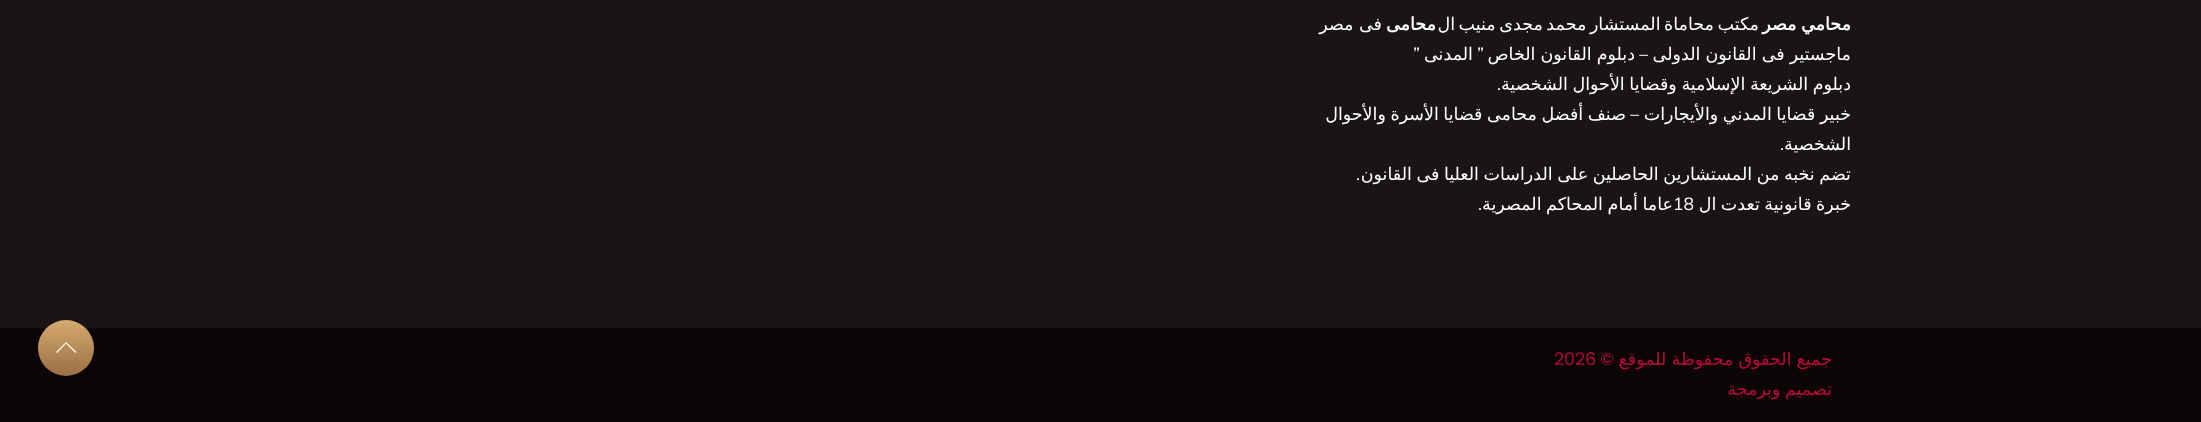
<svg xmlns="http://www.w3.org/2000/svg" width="2201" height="422">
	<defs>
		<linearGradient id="g1" gradientUnits="userSpaceOnUse" x1="66" y1="320" x2="66" y2="376"><stop offset="0" stop-color="#D5AA6D" /><stop offset="1" stop-color="#9B6F45" /></linearGradient>
	</defs>
	<rect width="100%" height="100%" fill="#191514" />
	<text x="1851" y="30" word-spacing="-1" font-family="DejaVu Sans" font-size="17.5" font-weight="700" direction="rtl" fill="#FFFFFF">محامي مصر</text>
	<text x="1759" y="30" word-spacing="-2" font-family="DejaVu Sans" font-size="17.5" direction="rtl" fill="#FFFFFF">مكتب محاماة المستشار محمد مجدى منيب ال</text>
	<text x="1436" y="30" font-family="DejaVu Sans" font-size="17.5" font-weight="700" direction="rtl" fill="#FFFFFF">محامى</text>
	<g font-family="DejaVu Sans" font-size="17.5" direction="rtl" fill="#FFFFFF">
		<text x="1382" y="30">فى مصر</text>
		<text x="1851" y="60" word-spacing="-0.5">ماجستير فى القانون الدولى</text>
		<text x="1635" y="60" word-spacing="-0.5">دبلوم القانون الخاص</text>
	</g>
	<text x="1484" y="60" font-family="Muli" font-size="17.5" direction="rtl" fill="#FFFFFF">”</text>
	<text x="1473" y="60" font-family="DejaVu Sans" font-size="17.5" direction="rtl" fill="#FFFFFF">المدنى</text>
	<g font-family="Muli" font-size="17.5" direction="rtl" fill="#FFFFFF">
		<text x="1420" y="60">”</text>
		<text x="1648" y="60">–</text>
	</g>
	<text x="1851" y="90" word-spacing="-1" font-family="DejaVu Sans" font-size="17.5" direction="rtl" fill="#FFFFFF">دبلوم الشريعة الإسلامية وقضايا الأحوال الشخصية</text>
	<text x="1501" y="90" font-family="Muli" font-size="17.5" direction="rtl" fill="#FFFFFF">.</text>
	<text x="1851" y="120" word-spacing="-1" font-family="DejaVu Sans" font-size="17.5" direction="rtl" fill="#FFFFFF">خبير قضايا المدني والأيجارات</text>
	<text x="1639" y="120" font-family="Muli" font-size="17.5" direction="rtl" fill="#FFFFFF">–</text>
	<g font-family="DejaVu Sans" font-size="17.5" direction="rtl" fill="#FFFFFF">
		<text x="1626" y="120" word-spacing="-1">صنف أفضل محامى قضايا الأسرة والأحوال</text>
		<text x="1851" y="150">الشخصية</text>
	</g>
	<text x="1784" y="150" font-family="Muli" font-size="17.5" direction="rtl" fill="#FFFFFF">.</text>
	<text x="1851" y="180" word-spacing="-1" font-family="DejaVu Sans" font-size="17.5" direction="rtl" fill="#FFFFFF">تضم نخبه من المستشارين الحاصلين على الدراسات العليا فى القانون</text>
	<text x="1360" y="180" font-family="Muli" font-size="17.5" direction="rtl" fill="#FFFFFF">.</text>
	<text x="1851" y="210" word-spacing="-1" font-family="DejaVu Sans" font-size="17.5" direction="rtl" fill="#FFFFFF">خبرة قانونية تعدت ال</text>
	<text x="1673" y="210" font-family="Muli" font-size="17.5" fill="#FFFFFF">18</text>
	<text x="1673" y="210" word-spacing="-1" font-family="DejaVu Sans" font-size="17.5" direction="rtl" fill="#FFFFFF">عاما أمام المحاكم المصرية</text>
	<text x="1482" y="210" font-family="Muli" font-size="17.5" direction="rtl" fill="#FFFFFF">.</text>
	<rect x="0" y="328" width="2201" height="94" fill="#0B0505" />
	<text x="1832" y="365" word-spacing="-0.5" font-family="DejaVu Sans" font-size="17.5" direction="rtl" fill="#BA0938">جميع الحقوق محفوظة للموقع</text>
	<text x="1614" y="365" font-family="Poppins" font-size="17.5" direction="rtl" fill="#BA0938">©</text>
	<text x="1554" y="365" font-family="Poppins" font-size="17.5" fill="#BA0938">2026</text>
	<text x="1832" y="395" word-spacing="-1" font-family="DejaVu Sans" font-size="17.5" direction="rtl" fill="#BA0938">تصميم وبرمجة</text>
	<circle cx="66" cy="348" r="28" fill="url(#g1)" />
	<path d="M76.5 352L75.5 353L66 343.5L57 353L56 352L66 342Z" fill="#FFFFFF" />
</svg>
